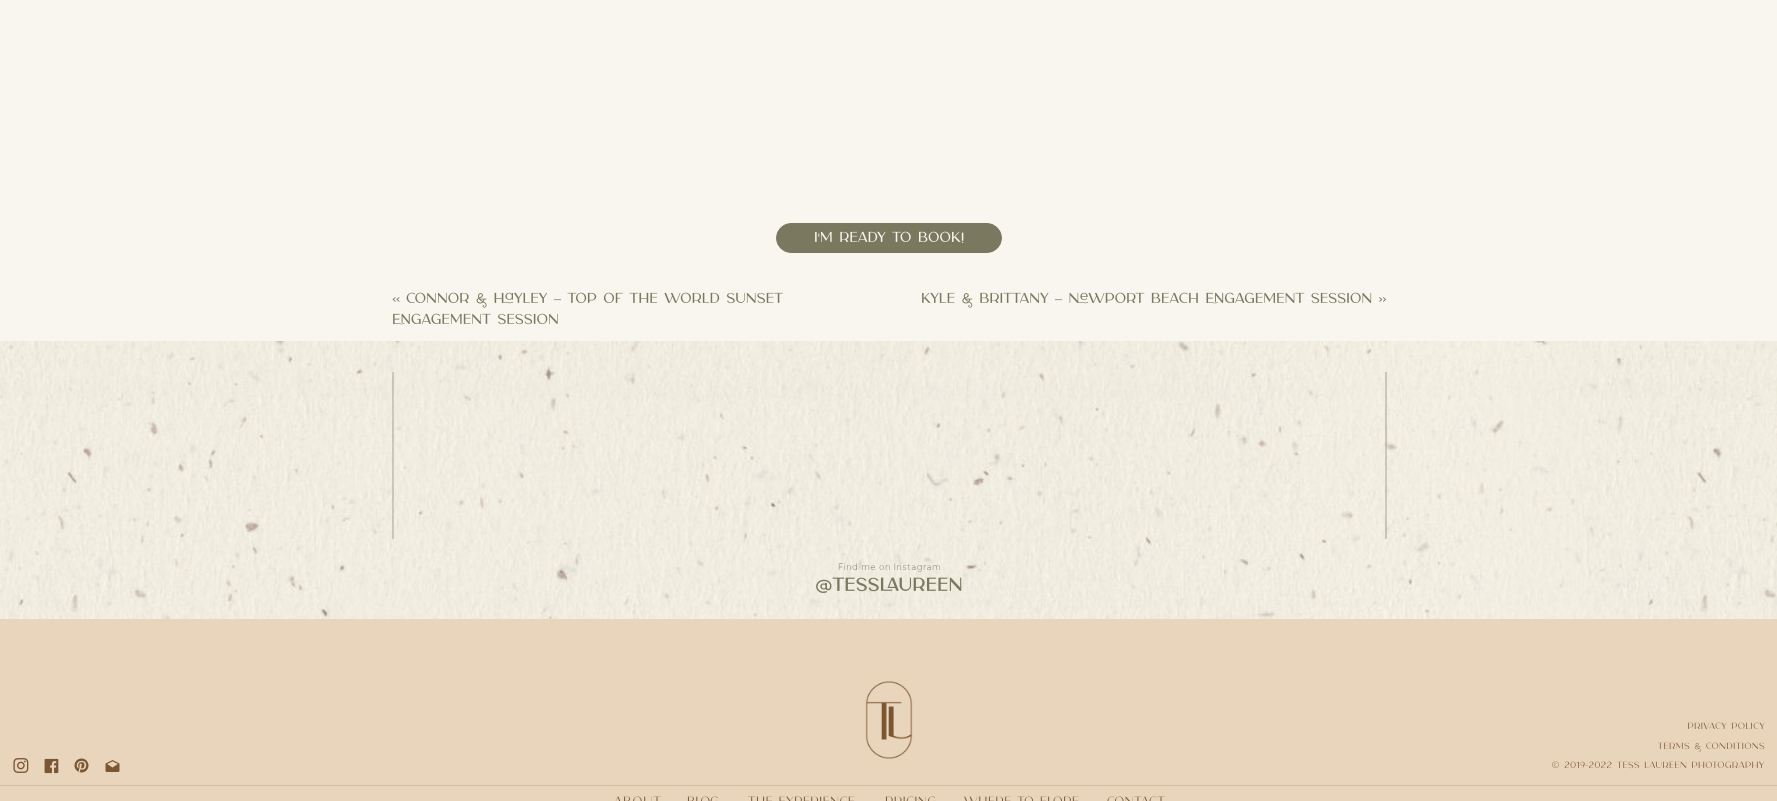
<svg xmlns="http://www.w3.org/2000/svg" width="1777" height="801">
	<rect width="100%" height="100%" fill="#F8F6EF" />
	<rect x="776.5" y="223.5" width="225" height="29" rx="14.5" fill="#7A7960" stroke="#7A7960" />
	<image x="815" y="231" width="149" height="12" href="assets/img1.png" />
	<image x="392" y="297" width="8" height="5" href="assets/img2.png" />
	<image x="406" y="292" width="141" height="16" href="assets/img3.png" />
	<text x="554" y="303" font-family="Liberation Serif" font-size="14" fill="#7A7960">–</text>
	<image x="567" y="292" width="216" height="12" href="assets/img4.png" />
	<image x="393" y="313" width="165" height="12" href="assets/img5.png" />
	<image x="922" y="292" width="127" height="16" href="assets/img6.png" />
	<text x="1055" y="303" font-family="Liberation Serif" font-size="14" fill="#7A7960">–</text>
	<image x="1069" y="292" width="303" height="12" href="assets/img7.png" />
	<image x="1379" y="297" width="7" height="5" href="assets/img8.png" />
	<rect x="0" y="619" width="1777" height="182" fill="#E9D5BB" />
	<image x="0" y="341" width="1777" height="278" href="assets/img9.png" />
	<rect x="392" y="372" width="2" height="167" fill="#333224" fill-opacity="0.2" />
	<rect x="1385" y="372" width="2" height="167" fill="#333224" fill-opacity="0.2" />
	<text x="838" y="570" font-family="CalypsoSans" font-size="10" letter-spacing="0.5" fill="#7A7960">Find me on Instagram</text>
	<image x="816" y="577" width="146" height="16" href="assets/img10.png" />
	<image x="865" y="681" width="48" height="78" href="assets/img11.png" />
	<image x="1688" y="722" width="77" height="7" href="assets/img12.png" />
	<image x="1657" y="742" width="108" height="10" href="assets/img13.png" />
	<image x="13" y="758" width="16" height="15" href="assets/img14.png" />
	<image x="44" y="758" width="15" height="16" href="assets/img15.png" />
	<image x="74" y="758" width="15" height="15" href="assets/img16.png" />
	<image x="105" y="760" width="15" height="12" href="assets/img17.png" />
	<image x="1552" y="761" width="212" height="8" href="assets/img18.png" />
	<rect x="0" y="785" width="1777" height="1" fill="#D3BCA0" />
	<image x="615" y="796" width="46" height="5" href="assets/img19.png" />
	<image x="687" y="796" width="31" height="5" href="assets/img20.png" />
	<image x="748" y="796" width="107" height="5" href="assets/img21.png" />
	<image x="885" y="796" width="51" height="5" href="assets/img22.png" />
	<image x="964" y="796" width="115" height="5" href="assets/img23.png" />
	<image x="1107" y="796" width="58" height="5" href="assets/img24.png" />
</svg>
